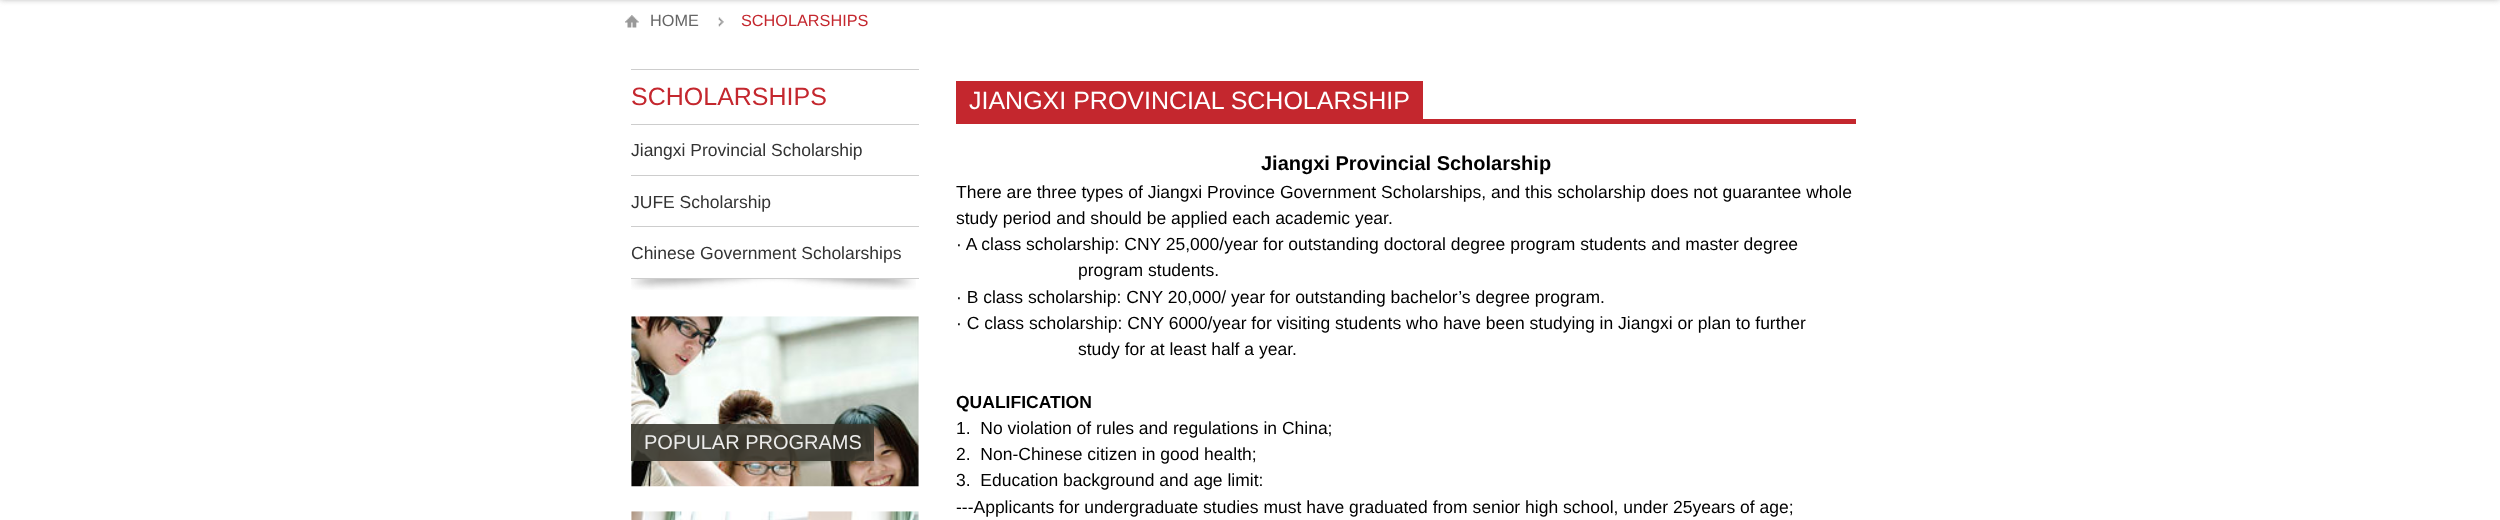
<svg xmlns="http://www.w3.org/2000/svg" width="2500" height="520">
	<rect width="100%" height="100%" fill="#FFFFFF" />
	<rect x="0" y="-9" width="2500" height="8" fill="#AAAAAA" filter="blur(3px)" />
	<image x="625" y="15" width="14" height="13" href="assets/img1.png" />
	<text x="650" y="26" font-family="Liberation Sans" font-size="16.25" fill="#666666">HOME</text>
	<image x="718" y="17" width="6" height="10" href="assets/img2.png" />
	<text x="741" y="26" font-family="Liberation Sans" font-size="16.25" fill="#C4272E">SCHOLARSHIPS</text>
	<image x="631" y="279" width="285" height="11" href="assets/img3.png" />
	<rect x="631" y="69" width="288" height="1" fill="#CDCDCD" />
	<rect x="631" y="124" width="288" height="1" fill="#CDCDCD" />
	<text x="631" y="105" font-family="Liberation Sans" font-size="25" fill="#C4272E">SCHOLARSHIPS</text>
	<rect x="631" y="175" width="288" height="1" fill="#CDCDCD" />
	<text x="631" y="156" font-family="Liberation Sans" font-size="17.5" fill="#333333">Jiangxi Provincial Scholarship</text>
	<rect x="631" y="226" width="288" height="1" fill="#CDCDCD" />
	<text x="631" y="208" font-family="Liberation Sans" font-size="17.5" fill="#333333">JUFE Scholarship</text>
	<rect x="631" y="278" width="288" height="1" fill="#CDCDCD" />
	<text x="631" y="259" font-family="Liberation Sans" font-size="17.5" fill="#333333">Chinese Government Scholarships</text>
	<image x="631" y="316" width="288" height="171" href="assets/img4.png" />
	<rect x="631" y="424" width="243" height="37" fill="#38372F" fill-opacity="0.9" />
	<text x="644" y="449" font-family="Liberation Sans" font-size="20" fill="#ECECEB">POPULAR PROGRAMS</text>
	<image x="631" y="511" width="288" height="9" href="assets/img5.png" />
	<rect x="956" y="119" width="900" height="5" fill="#C4272E" />
	<rect x="956" y="81" width="467" height="38" fill="#C4272E" />
	<text x="969" y="109" font-family="Liberation Sans" font-size="25" fill="#FFFFFF">JIANGXI PROVINCIAL SCHOLARSHIP</text>
	<text x="1261" y="170" font-family="Liberation Sans" font-size="20" font-weight="700" fill="#000000">Jiangxi Provincial Scholarship</text>
	<g font-family="Liberation Sans" font-size="17.5" fill="#000000">
		<text x="956" y="198">There are three types of Jiangxi Province Government Scholarships, and this scholarship does not guarantee whole</text>
		<text x="956" y="224">study period and should be applied each academic year.</text>
		<text x="956" y="250">· A class scholarship: CNY 25,000/year for outstanding doctoral degree program students and master degree</text>
		<text x="1078" y="276">program students.</text>
		<text x="956" y="303">· B class scholarship: CNY 20,000/ year for outstanding bachelor’s degree program.</text>
		<text x="956" y="329">· C class scholarship: CNY 6000/year for visiting students who have been studying in Jiangxi or plan to further</text>
		<text x="1078" y="355">study for at least half a year.</text>
	</g>
	<text x="956" y="408" font-family="Liberation Sans" font-size="17.5" font-weight="700" fill="#000000">QUALIFICATION</text>
	<g font-family="Liberation Sans" font-size="17.5" fill="#000000">
		<text x="956" y="434" xml:space="preserve">1.  No violation of rules and regulations in China;</text>
		<text x="956" y="460" xml:space="preserve">2.  Non-Chinese citizen in good health;</text>
		<text x="956" y="486" xml:space="preserve">3.  Education background and age limit:</text>
		<text x="956" y="513">---Applicants for undergraduate studies must have graduated from senior high school, under 25years of age;</text>
	</g>
</svg>
